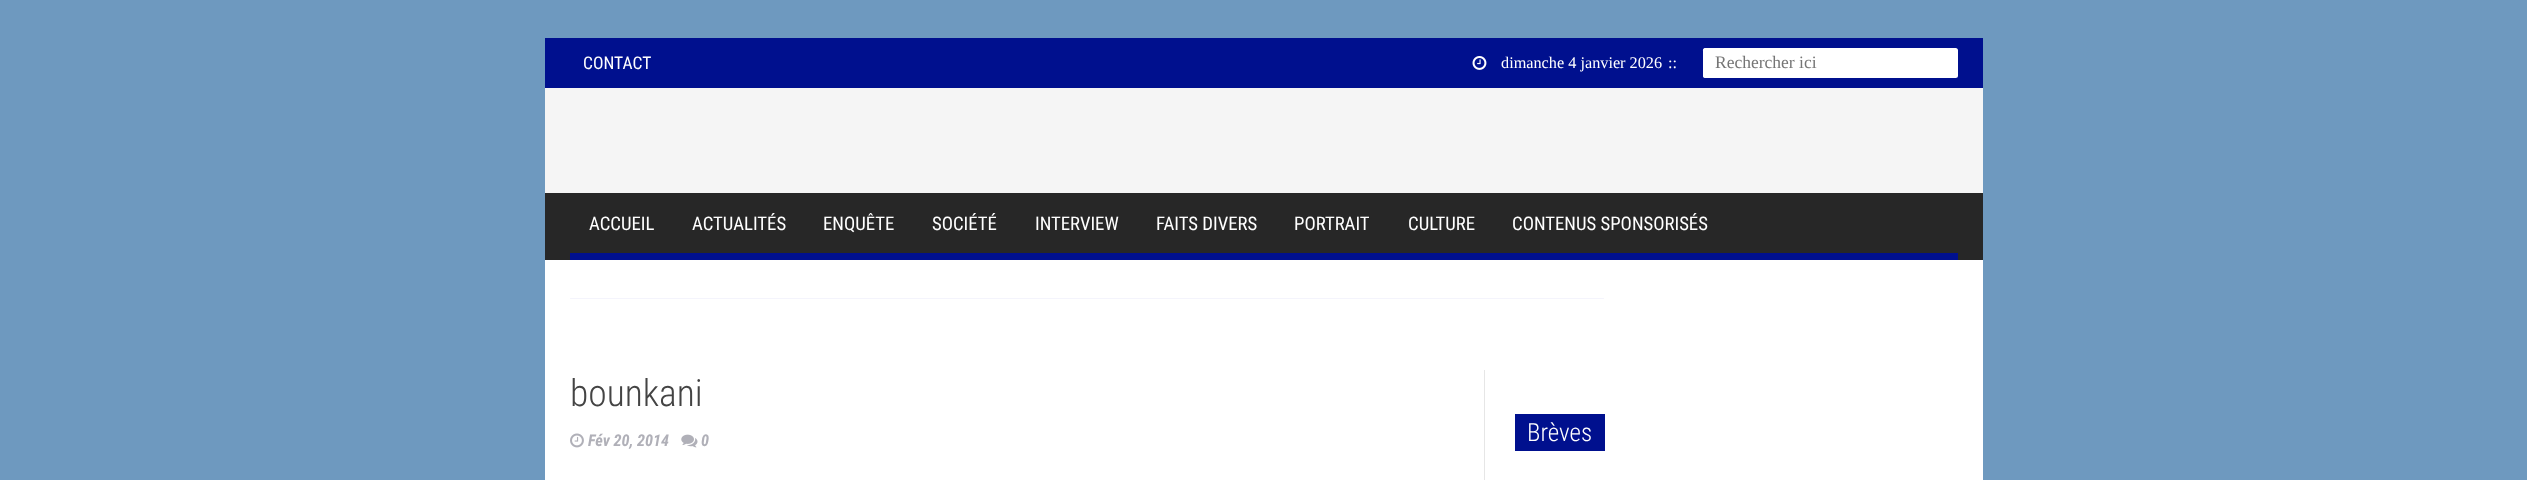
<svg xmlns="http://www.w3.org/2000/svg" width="2527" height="480">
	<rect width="100%" height="100%" fill="#6E99BF" />
	<rect x="545" y="260" width="1438" height="220" fill="#FFFFFF" />
	<rect x="545" y="38" width="1438" height="50" fill="#00108E" />
	<text x="583" y="69" font-family="Roboto Condensed" font-size="17.5" fill="#FFFFFF">CONTACT</text>
	<image x="1472" y="56" width="15" height="14" href="assets/img1.png" />
	<g font-family="Liberation Serif" font-size="16.25" fill="#FFFFFF">
		<text x="1501" y="68">dimanche 4 janvier 2026</text>
		<text x="1668" y="68">::</text>
	</g>
	<rect x="1703" y="48" width="255" height="30" rx="2.5" fill="#FFFFFF" />
	<path d="M1705.5 48H1915V78H1705.5C1704 78 1703 77 1703 75.5V50.5C1703 49 1704 48 1705.5 48Z" fill="#FFFFFF" />
	<text x="1715" y="68" font-family="Liberation Serif" font-size="17.5" fill="#757575">Rechercher ici</text>
	<rect x="545" y="88" width="1438" height="105" fill="#F5F5F5" />
	<rect x="545" y="193" width="1438" height="67" fill="#272727" />
	<rect x="570" y="253" width="1388" height="7" fill="#00108E" />
	<g font-family="Roboto Condensed" font-size="18.75" fill="#FFFFFF">
		<text x="589" y="230">ACCUEIL</text>
		<text x="692" y="230">ACTUALITÉS</text>
		<text x="823" y="230">ENQUÊTE</text>
		<text x="932" y="230">SOCIÉTÉ</text>
		<text x="1035" y="230">INTERVIEW</text>
		<text x="1156" y="230">FAITS DIVERS</text>
		<text x="1294" y="230">PORTRAIT</text>
		<text x="1408" y="230">CULTURE</text>
		<text x="1512" y="230">CONTENUS SPONSORISÉS</text>
	</g>
	<rect x="570" y="298" width="1034" height="1" rx="0.5" fill="#F4F4FC" />
	<rect x="1484" y="370" width="1" height="110" fill="#E6E6E6" />
	<text x="570" y="406" font-family="Roboto Condensed" font-size="37.5" font-weight="300" fill="#444444">bounkani</text>
	<image x="570" y="433" width="14" height="15" href="assets/img2.png" />
	<text x="588" y="446" font-family="Roboto Condensed" font-size="16.25" font-weight="700" font-style="italic" fill="#B0B0B8">Fév 20, 2014</text>
	<image x="681" y="434" width="17" height="14" href="assets/img3.png" />
	<text x="701" y="446" font-family="Roboto Condensed" font-size="16.25" font-weight="700" font-style="italic" fill="#B0B0B8">0</text>
	<rect x="1515" y="414" width="90" height="37" fill="#00108E" />
	<text x="1527" y="441" font-family="Roboto Condensed" font-size="25" font-weight="300" fill="#FFFFFF">Brèves</text>
</svg>
